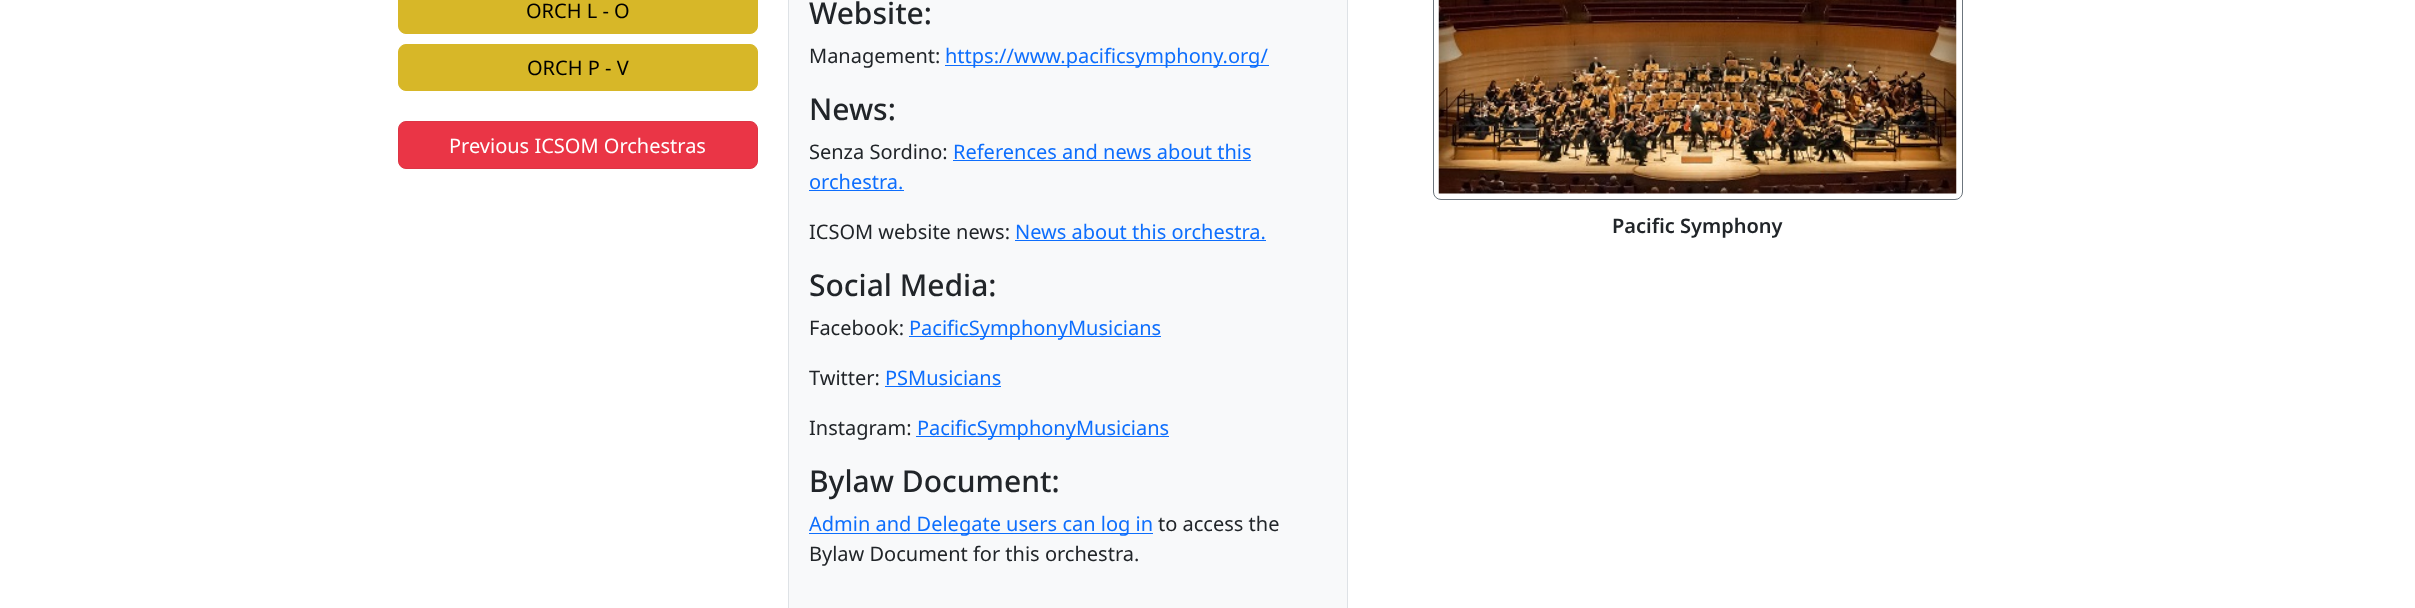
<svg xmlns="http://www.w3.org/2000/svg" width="2415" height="608">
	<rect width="100%" height="100%" fill="#FFFFFF" />
	<rect x="398.5" y="-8.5" width="359" height="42" rx="7.5" fill="#D7B728" stroke="#D7B728" />
	<text x="526" y="18" font-family="Noto Sans" font-size="20" fill="#000000">ORCH L - O</text>
	<rect x="398.5" y="44.5" width="359" height="46" rx="7.5" fill="#D7B728" stroke="#D7B728" />
	<text x="527" y="75" font-family="Noto Sans" font-size="20" fill="#000000">ORCH P - V</text>
	<rect x="398.5" y="121.5" width="359" height="47" rx="7.5" fill="#EA3546" stroke="#DC3545" />
	<text x="449" y="153" font-family="Noto Sans" font-size="20" fill="#FFFFFF">Previous ICSOM Orchestras</text>
	<rect x="788.5" y="-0.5" width="559" height="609" fill="#F8F9FA" stroke="#DEE2E6" />
	<text x="809" y="24" font-family="Noto Sans" font-size="30" font-weight="500" fill="#212529">Website:</text>
	<text x="809" y="63" font-family="Noto Sans" font-size="20" fill="#212529">Management:</text>
	<rect x="945" y="65" width="324" height="1" fill="#0D6EFD" />
	<text x="945" y="63" font-family="Noto Sans" font-size="20" fill="#0D6EFD">https://www.pacificsymphony.org/</text>
	<text x="809" y="120" font-family="Noto Sans" font-size="30" font-weight="500" fill="#212529">News:</text>
	<text x="809" y="159" font-family="Noto Sans" font-size="20" fill="#212529">Senza Sordino:</text>
	<text x="953" y="159" font-family="Noto Sans" font-size="20" fill="#0D6EFD">References and news about this</text>
	<rect x="953" y="160" width="298" height="1" fill="#0D6EFD" />
	<text x="809" y="189" font-family="Noto Sans" font-size="20" fill="#0D6EFD">orchestra.</text>
	<rect x="809" y="190" width="95" height="1" fill="#0D6EFD" />
	<text x="809" y="239" font-family="Noto Sans" font-size="20" fill="#212529">ICSOM website news:</text>
	<text x="1015" y="239" font-family="Noto Sans" font-size="20" fill="#0D6EFD">News about this orchestra.</text>
	<rect x="1015" y="240" width="251" height="1" fill="#0D6EFD" />
	<text x="809" y="296" font-family="Noto Sans" font-size="30" font-weight="500" fill="#212529">Social Media:</text>
	<text x="809" y="335" font-family="Noto Sans" font-size="20" fill="#212529">Facebook:</text>
	<rect x="909" y="336" width="252" height="1" fill="#0D6EFD" />
	<text x="909" y="335" font-family="Noto Sans" font-size="20" fill="#0D6EFD">PacificSymphonyMusicians</text>
	<text x="809" y="385" font-family="Noto Sans" font-size="20" fill="#212529">Twitter:</text>
	<text x="885" y="385" font-family="Noto Sans" font-size="20" fill="#0D6EFD">PSMusicians</text>
	<rect x="885" y="386" width="116" height="1" fill="#0D6EFD" />
	<text x="809" y="435" font-family="Noto Sans" font-size="20" fill="#212529">Instagram:</text>
	<rect x="916" y="436" width="253" height="1" fill="#0D6EFD" />
	<text x="917" y="435" font-family="Noto Sans" font-size="20" fill="#0D6EFD">PacificSymphonyMusicians</text>
	<text x="809" y="492" font-family="Noto Sans" font-size="30" font-weight="500" fill="#212529">Bylaw Document:</text>
	<rect x="809" y="533" width="344" height="1" fill="#0D6EFD" />
	<text x="809" y="531" font-family="Noto Sans" font-size="20" fill="#0D6EFD">Admin and Delegate users can log in</text>
	<g font-family="Noto Sans" font-size="20" fill="#212529">
		<text x="1158" y="531">to access the</text>
		<text x="809" y="561">Bylaw Document for this orchestra.</text>
	</g>
	<rect x="1433.5" y="-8.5" width="529" height="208" rx="7.5" fill="none" stroke="#6C757D" />
	<image x="1438" y="0" width="519" height="194" href="assets/img1.png" />
	<text x="1612" y="233" font-family="Noto Sans" font-size="20" font-weight="600" fill="#212529">Pacific Symphony</text>
</svg>
